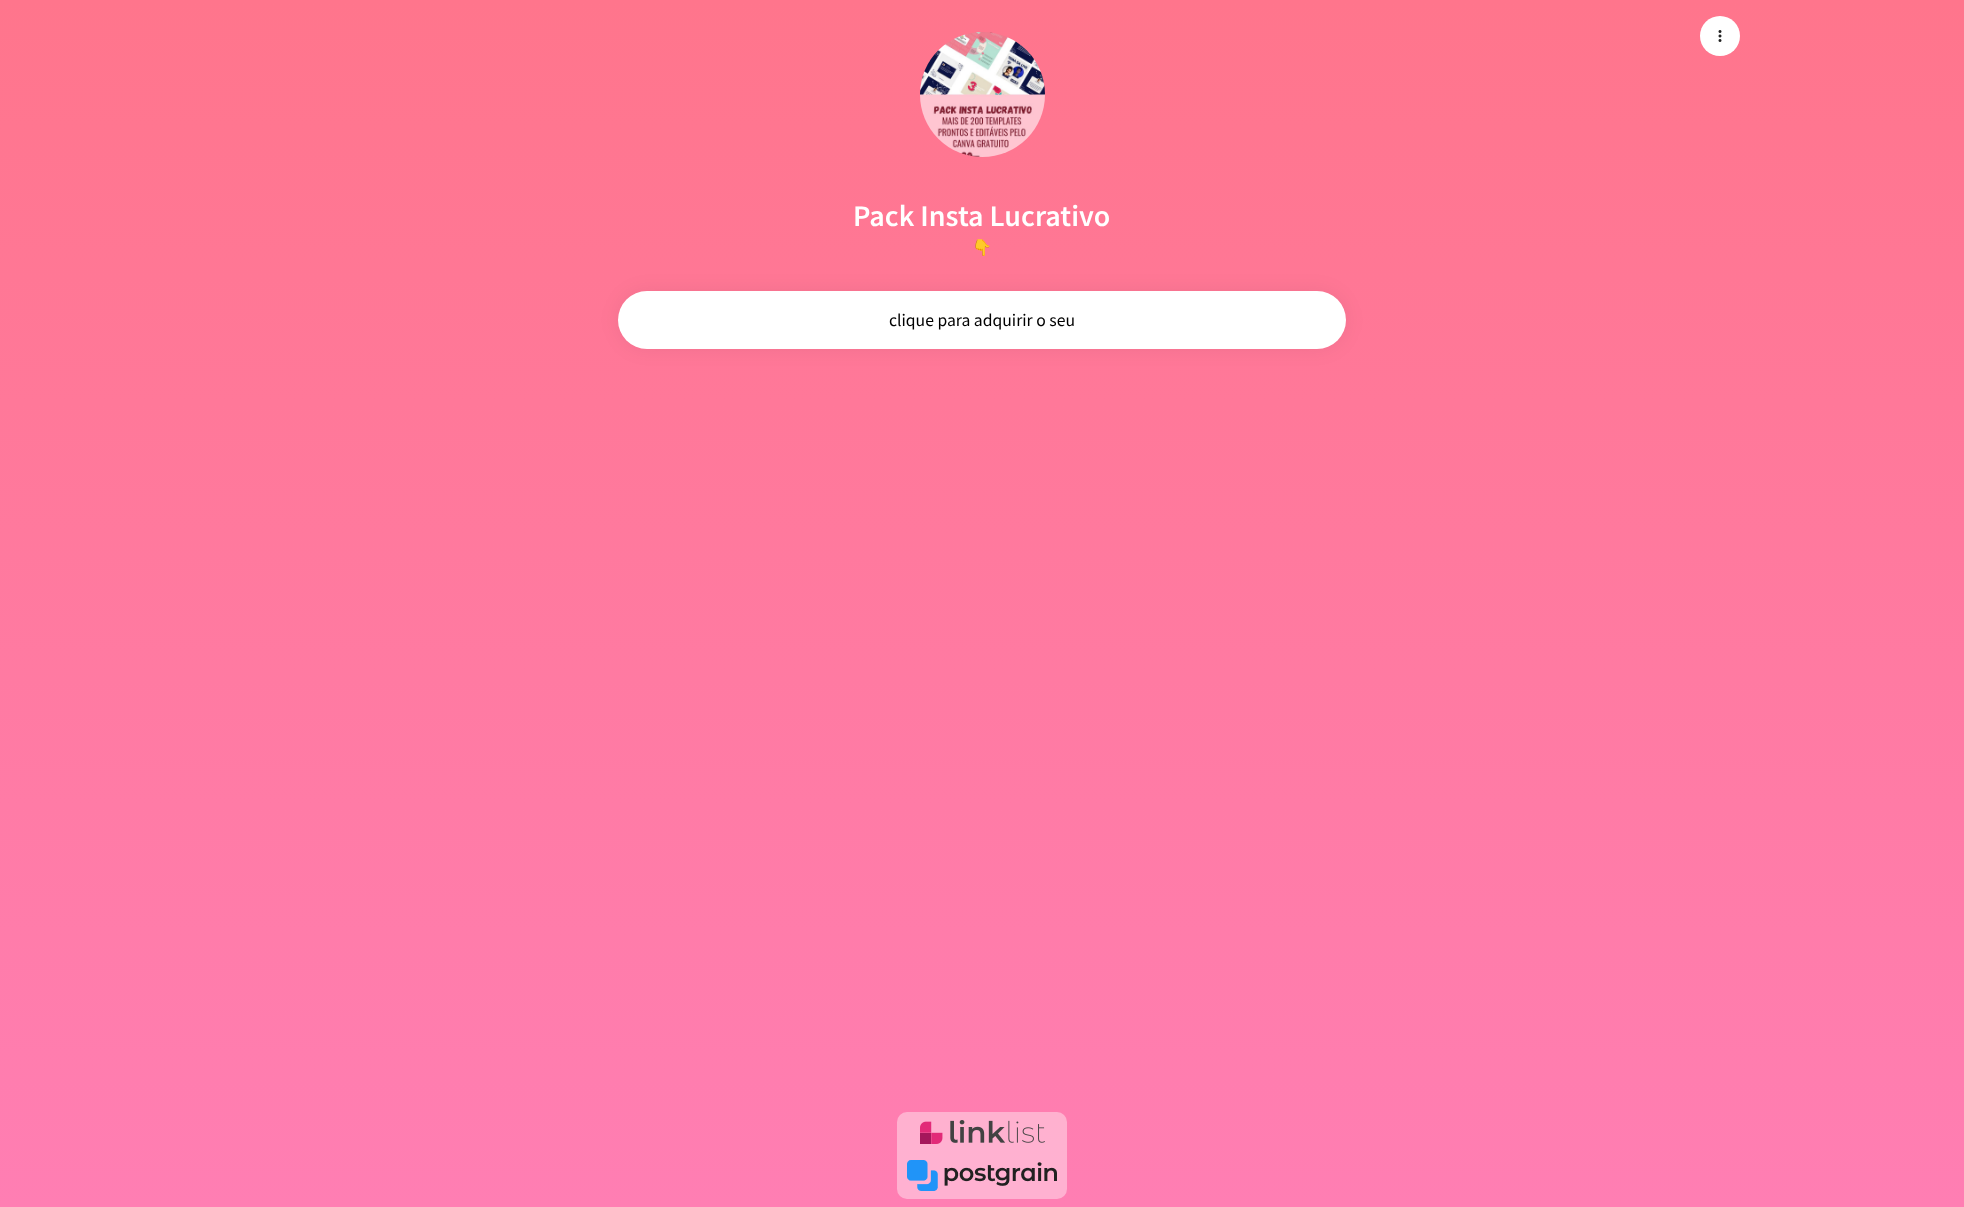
<svg xmlns="http://www.w3.org/2000/svg" width="1964" height="1207">
	<defs>
		<linearGradient id="g1" gradientUnits="userSpaceOnUse" x1="982" y1="0" x2="982" y2="1207"><stop offset="0" stop-color="#FF758C" /><stop offset="1" stop-color="#FF7EB3" /></linearGradient>
	</defs>
	<rect width="100%" height="100%" fill="#FFFFFF" />
	<rect x="0" y="0" width="1964" height="1207" fill="url(#g1)" />
	<circle cx="1720" cy="36" r="20" fill="#FFFFFF" />
	<image x="1718" y="30" width="4" height="12" href="assets/img1.png" />
	<image x="920" y="32" width="125" height="125" href="assets/img2.png" />
	<text x="853" y="226" font-family="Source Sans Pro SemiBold" font-size="30" font-weight="600" fill="#FFFFFF">Pack Insta Lucrativo</text>
	<text x="972" y="253" font-family="Noto Color Emoji" font-size="16" fill="#FFFFFF">👇</text>
	<rect x="618" y="291" width="728" height="58" rx="29" fill="#000000" fill-opacity="0.06" filter="blur(10px)" />
	<rect x="618" y="291" width="728" height="58" rx="29" fill="#FFFFFF" />
	<text x="889" y="326" font-family="Source Sans Pro" font-size="17.6" fill="#000000">clique para adquirir o seu</text>
	<rect x="897" y="1112" width="170" height="87" rx="10" fill="#FFFFFF" fill-opacity="0.4" />
	<image x="920" y="1120" width="125" height="24" href="assets/img3.png" />
	<image x="907" y="1160" width="150" height="31" href="assets/img4.png" />
</svg>
